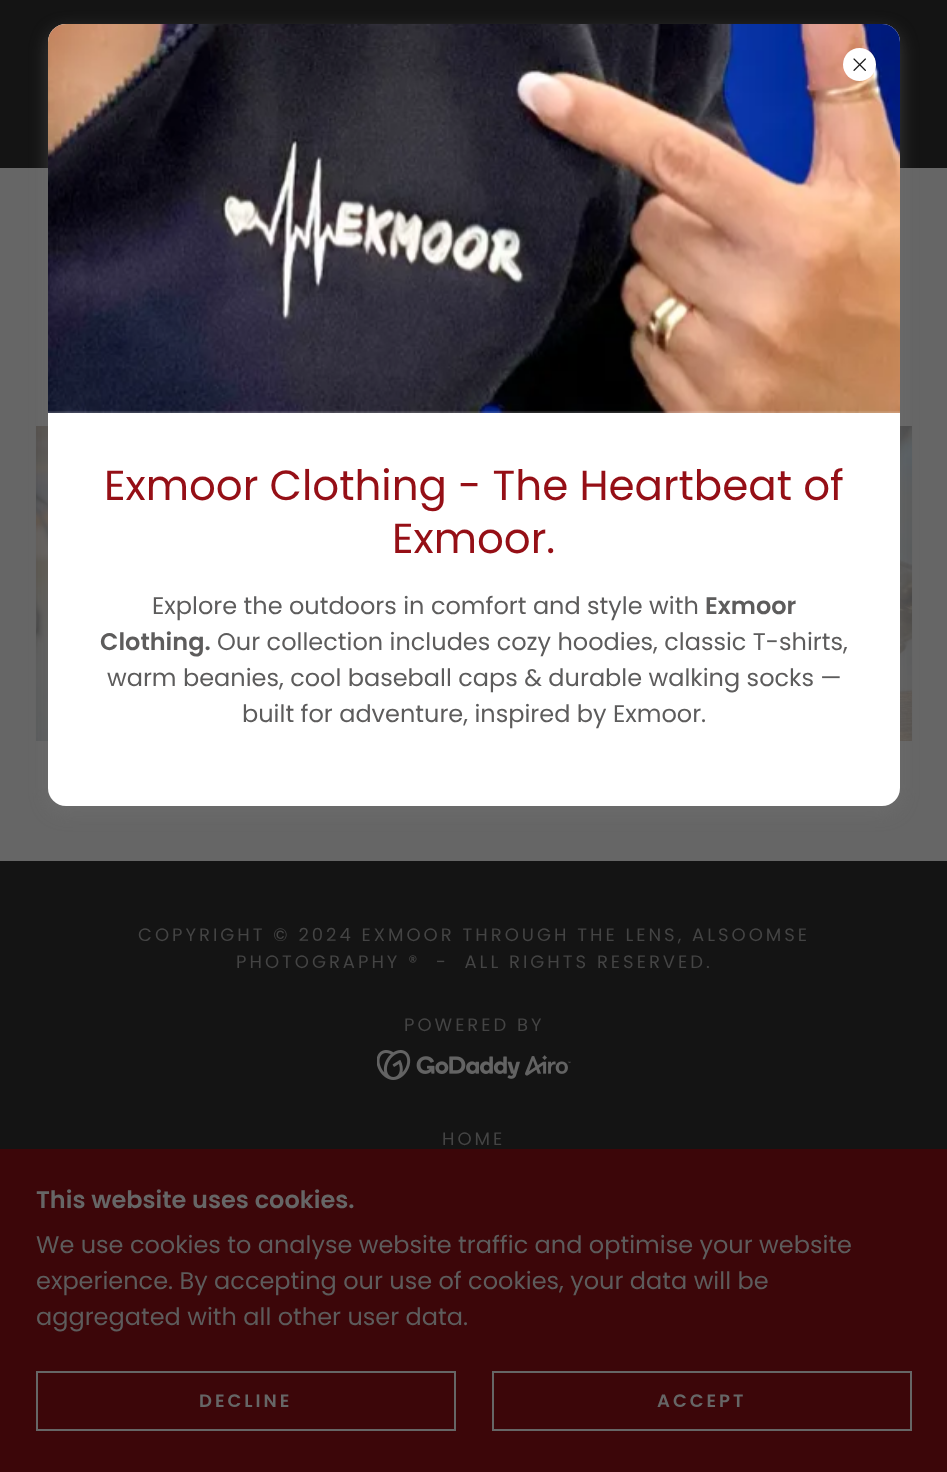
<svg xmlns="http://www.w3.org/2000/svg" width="947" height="1472">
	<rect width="100%" height="100%" fill="#141414" />
	<rect x="0" y="168" width="947" height="693" fill="#666666" />
	<image x="36" y="426" width="12" height="315" href="assets/img1.png" />
	<image x="900" y="426" width="12" height="315" href="assets/img2.png" />
	<rect x="48" y="30" width="852" height="782" rx="18" fill="#757575" fill-opacity="0.4" filter="blur(9px)" />
	<rect x="48" y="24" width="852" height="782" rx="18" fill="#FFFFFF" />
	<image x="48" y="24" width="852" height="389" href="assets/img4.png" />
	<circle cx="859.5" cy="64.5" r="16.5" fill="#FFFFFF" />
	<image x="853" y="58" width="13" height="13" href="assets/img3.png" />
	<g font-family="Poppins" font-size="42" fill="#950F16">
		<text x="104" y="500">Exmoor Clothing - The Heartbeat of</text>
		<text x="392" y="553">Exmoor.</text>
	</g>
	<text x="152" y="614" font-family="Poppins" font-size="24" fill="#5D5C5C">Explore the outdoors in comfort and style with</text>
	<g font-family="Poppins" font-size="24" font-weight="600" fill="#5D5C5C">
		<text x="705" y="614">Exmoor</text>
		<text x="100" y="650">Clothing.</text>
	</g>
	<g font-family="Poppins" font-size="24" fill="#5D5C5C">
		<text x="217" y="650">Our collection includes cozy hoodies, classic T-shirts,</text>
		<text x="107" y="686">warm beanies, cool baseball caps &amp; durable walking socks —</text>
		<text x="242" y="722">built for adventure, inspired by Exmoor.</text>
	</g>
	<g font-family="Poppins" font-size="18" letter-spacing="3" fill="#444444">
		<text x="138" y="941">COPYRIGHT © 2024 EXMOOR THROUGH THE LENS, ALSOOMSE</text>
		<text x="236" y="968" xml:space="preserve">PHOTOGRAPHY ®  -  ALL RIGHTS RESERVED.</text>
		<text x="404" y="1031">POWERED BY</text>
	</g>
	<image x="377" y="1050" width="194" height="30" href="assets/img5.png" />
	<text x="442" y="1145" font-family="Poppins" font-size="18" letter-spacing="3" fill="#444444">HOME</text>
	<rect x="0" y="1149" width="947" height="323" fill="#3C0609" />
	<text x="36" y="1208" font-family="Poppins" font-size="24" font-weight="600" fill="#666666">This website uses cookies.</text>
	<g font-family="Poppins" font-size="24" fill="#5D5C5C">
		<text x="36" y="1253">We use cookies to analyse website traffic and optimise your website</text>
		<text x="36" y="1289">experience. By accepting our use of cookies, your data will be</text>
		<text x="36" y="1325">aggregated with all other user data.</text>
	</g>
	<rect x="37" y="1372" width="418" height="58" fill="none" stroke="#666666" stroke-width="2" />
	<text x="199" y="1407" font-family="Poppins" font-size="18" font-weight="600" letter-spacing="3" fill="#666666">DECLINE</text>
	<rect x="493" y="1372" width="418" height="58" fill="none" stroke="#666666" stroke-width="2" />
	<text x="657" y="1407" font-family="Poppins" font-size="18" font-weight="600" letter-spacing="3" fill="#666666">ACCEPT</text>
</svg>
